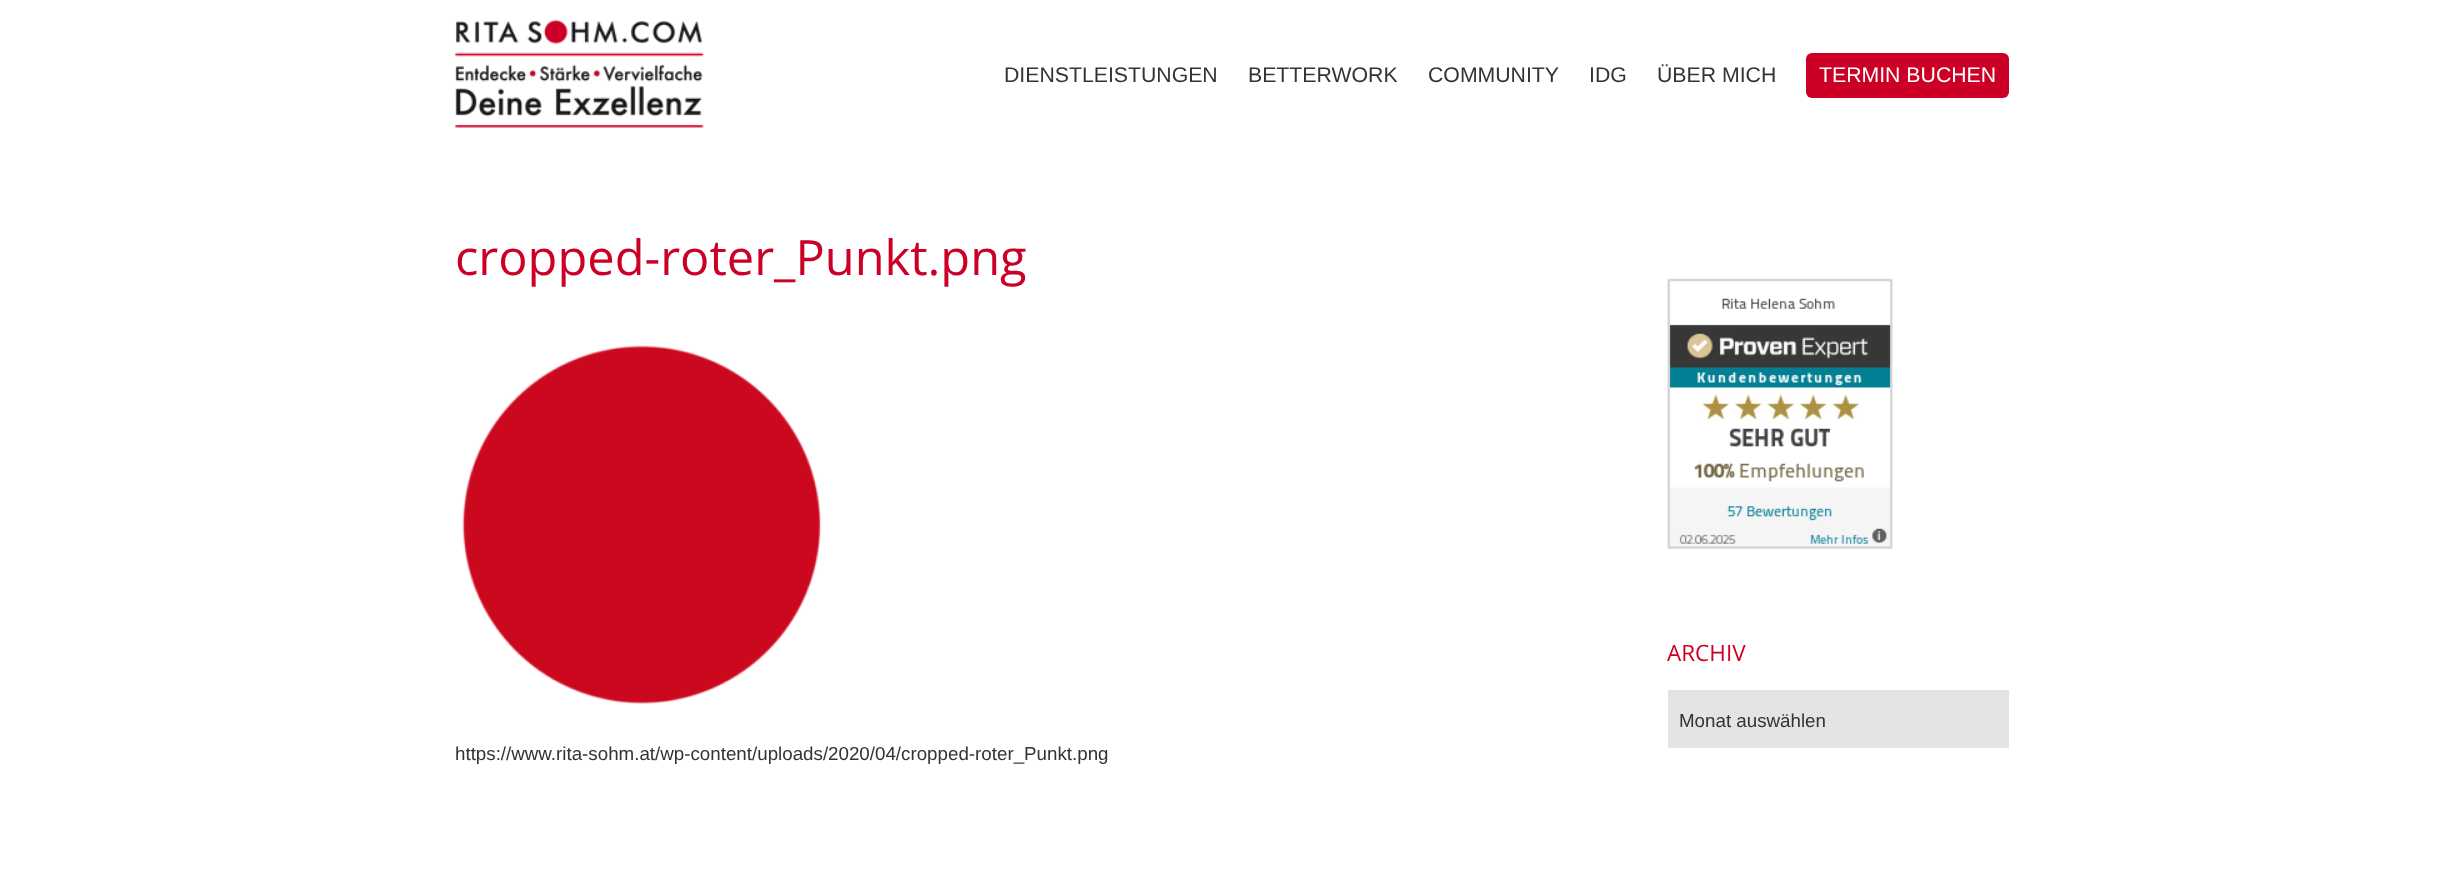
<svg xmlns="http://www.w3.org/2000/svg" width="2463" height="879">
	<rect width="100%" height="100%" fill="#FFFFFF" />
	<image x="455" y="19" width="249" height="109" href="assets/img1.png" />
	<g font-family="Liberation Sans" font-size="21.25" fill="#333333">
		<text x="1004" y="82">DIENSTLEISTUNGEN</text>
		<text x="1248" y="82">BETTERWORK</text>
		<text x="1428" y="82">COMMUNITY</text>
		<text x="1589" y="82">IDG</text>
		<text x="1657" y="82">ÜBER MICH</text>
	</g>
	<rect x="1806" y="53" width="203" height="45" rx="6" fill="#CC0026" />
	<text x="1819" y="82" font-family="Liberation Sans" font-size="21.25" fill="#FFFFFF">TERMIN BUCHEN</text>
	<text x="455" y="275" font-family="Open Sans" font-size="48.75" fill="#CC0026">cropped-roter_Punkt.png</text>
	<image x="462" y="345" width="360" height="359" href="assets/img2.png" />
	<text x="455" y="760" font-family="Liberation Sans" font-size="18.75" fill="#333333">https://www.rita-sohm.at/wp-content/uploads/2020/04/cropped-roter_Punkt.png</text>
	<image x="1667" y="278" width="226" height="271" href="assets/img3.png" />
	<text x="1667" y="661" font-family="Open Sans" font-size="22.5" fill="#CC0026">ARCHIV</text>
	<rect x="1668" y="690" width="341" height="58" fill="#E4E4E4" />
	<text x="1679" y="727" font-family="Liberation Sans" font-size="18.75" fill="#333333">Monat auswählen</text>
</svg>
